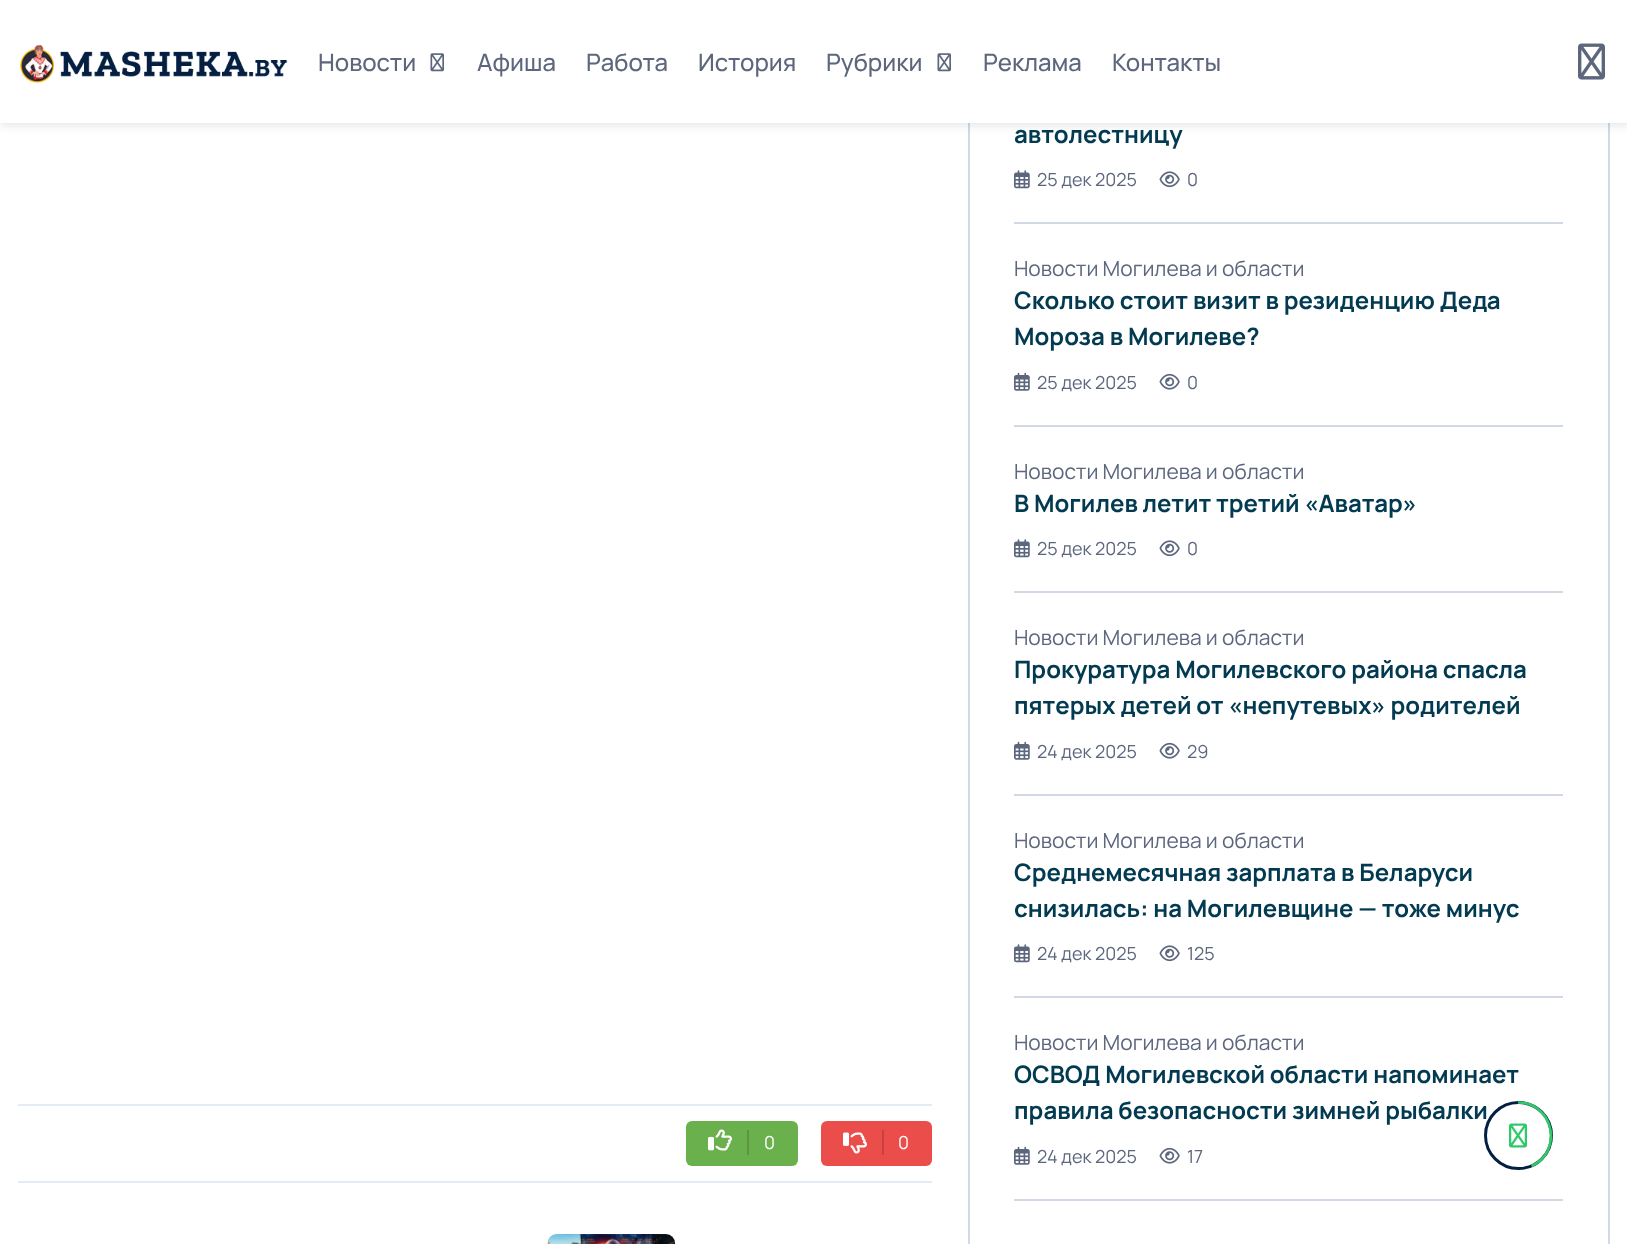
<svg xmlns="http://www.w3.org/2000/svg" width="1627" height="1244">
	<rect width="100%" height="100%" fill="#FFFFFF" />
	<rect x="969" y="-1" width="640" height="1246" fill="none" stroke="#D1D8E6" stroke-width="2" />
	<rect x="0" y="0" width="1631" height="126" fill="#041F42" fill-opacity="0.1" filter="blur(4px)" />
	<rect x="0" y="0" width="1627" height="123" fill="#FFFFFF" />
	<image x="20" y="45" width="268" height="38" href="assets/img1.png" />
	<text x="318" y="71" font-family="'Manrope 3'" font-size="24" font-weight="200" fill="#5C667D">Новости</text>
	<image x="430" y="53" width="14" height="19" href="assets/img2.png" />
	<g font-family="'Manrope 3'" font-size="24" font-weight="200" fill="#5C667D">
		<text x="477" y="71">Афиша</text>
		<text x="586" y="71">Работа</text>
		<text x="698" y="71">История</text>
		<text x="826" y="71">Рубрики</text>
	</g>
	<image x="937" y="53" width="14" height="19" href="assets/img2.png" />
	<g font-family="'Manrope 3'" font-size="24" font-weight="200" fill="#5C667D">
		<text x="983" y="71">Реклама</text>
		<text x="1112" y="71">Контакты</text>
	</g>
	<image x="1578" y="43" width="27" height="37" href="assets/img3.png" />
	<rect x="18" y="1104" width="914" height="2" fill="#E4EAF7" />
	<rect x="18" y="1181" width="914" height="2" fill="#E4EAF7" />
	<rect x="686" y="1121" width="112" height="45" rx="6" fill="#6AB04C" />
	<image x="708" y="1129" width="24" height="22" href="assets/img4.png" />
	<rect x="747" y="1130" width="2" height="25" fill="#5A9641" />
	<text x="764" y="1149" font-family="Manrope" font-size="18" font-weight="200" fill="#FFFFFF">0</text>
	<rect x="821" y="1121" width="111" height="45" rx="6" fill="#EB4D4B" />
	<image x="843" y="1132" width="24" height="22" href="assets/img5.png" />
	<rect x="882" y="1130" width="2" height="25" fill="#C84140" />
	<text x="898" y="1149" font-family="Manrope" font-size="18" font-weight="200" fill="#FFFFFF">0</text>
	<image x="547" y="1234" width="128" height="10" href="assets/img6.png" />
	<text x="1014" y="143" font-family="'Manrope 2'" font-size="24" font-weight="200" fill="#023A51">автолестницу</text>
	<image x="1014" y="170" width="16" height="19" href="assets/img7.png" />
	<text x="1037" y="186" font-family="Manrope" font-size="18" font-weight="200" fill="#5C667D">25 дек 2025</text>
	<image x="1159" y="171" width="21" height="17" href="assets/img8.png" />
	<text x="1187" y="186" font-family="Manrope" font-size="18" font-weight="200" fill="#5C667D">0</text>
	<rect x="1014" y="222" width="549" height="2" fill="#D1D8E6" />
	<text x="1014" y="276" font-family="Manrope" font-size="21" font-weight="200" fill="#5C667D">Новости Могилева и области</text>
	<g font-family="'Manrope 2'" font-size="24" font-weight="200" fill="#023A51">
		<text x="1014" y="309">Сколько стоит визит в резиденцию Деда</text>
		<text x="1014" y="345">Мороза в Могилеве?</text>
	</g>
	<image x="1014" y="372" width="16" height="19" href="assets/img9.png" />
	<text x="1037" y="389" font-family="Manrope" font-size="18" font-weight="200" fill="#5C667D">25 дек 2025</text>
	<image x="1159" y="373" width="21" height="17" href="assets/img10.png" />
	<text x="1187" y="389" font-family="Manrope" font-size="18" font-weight="200" fill="#5C667D">0</text>
	<rect x="1014" y="425" width="549" height="2" fill="#D1D8E6" />
	<text x="1014" y="479" font-family="Manrope" font-size="21" font-weight="200" fill="#5C667D">Новости Могилева и области</text>
	<text x="1014" y="512" font-family="'Manrope 2'" font-size="24" font-weight="200" fill="#023A51">В Могилев летит третий «Аватар»</text>
	<image x="1014" y="539" width="16" height="19" href="assets/img7.png" />
	<text x="1037" y="555" font-family="Manrope" font-size="18" font-weight="200" fill="#5C667D">25 дек 2025</text>
	<image x="1159" y="540" width="21" height="17" href="assets/img8.png" />
	<text x="1187" y="555" font-family="Manrope" font-size="18" font-weight="200" fill="#5C667D">0</text>
	<rect x="1014" y="591" width="549" height="2" fill="#D1D8E6" />
	<text x="1014" y="645" font-family="Manrope" font-size="21" font-weight="200" fill="#5C667D">Новости Могилева и области</text>
	<g font-family="'Manrope 2'" font-size="24" font-weight="200" fill="#023A51">
		<text x="1014" y="678">Прокуратура Могилевского района спасла</text>
		<text x="1014" y="714">пятерых детей от «непутевых» родителей</text>
	</g>
	<image x="1014" y="741" width="16" height="19" href="assets/img9.png" />
	<text x="1037" y="758" font-family="Manrope" font-size="18" font-weight="200" fill="#5C667D">24 дек 2025</text>
	<image x="1159" y="742" width="21" height="17" href="assets/img10.png" />
	<text x="1187" y="758" font-family="Manrope" font-size="18" font-weight="200" fill="#5C667D">29</text>
	<rect x="1014" y="794" width="549" height="2" fill="#D1D8E6" />
	<text x="1014" y="848" font-family="Manrope" font-size="21" font-weight="200" fill="#5C667D">Новости Могилева и области</text>
	<g font-family="'Manrope 2'" font-size="24" font-weight="200" fill="#023A51">
		<text x="1014" y="881">Среднемесячная зарплата в Беларуси</text>
		<text x="1014" y="917">снизилась: на Могилевщине — тоже минус</text>
	</g>
	<image x="1014" y="944" width="16" height="19" href="assets/img7.png" />
	<text x="1037" y="960" font-family="Manrope" font-size="18" font-weight="200" fill="#5C667D">24 дек 2025</text>
	<image x="1159" y="945" width="21" height="17" href="assets/img8.png" />
	<text x="1187" y="960" font-family="Manrope" font-size="18" font-weight="200" fill="#5C667D">125</text>
	<rect x="1014" y="996" width="549" height="2" fill="#D1D8E6" />
	<text x="1014" y="1050" font-family="Manrope" font-size="21" font-weight="200" fill="#5C667D">Новости Могилева и области</text>
	<g font-family="'Manrope 2'" font-size="24" font-weight="200" fill="#023A51">
		<text x="1014" y="1083">ОСВОД Могилевской области напоминает</text>
		<text x="1014" y="1119">правила безопасности зимней рыбалки</text>
	</g>
	<image x="1014" y="1146" width="16" height="19" href="assets/img9.png" />
	<text x="1037" y="1163" font-family="Manrope" font-size="18" font-weight="200" fill="#5C667D">24 дек 2025</text>
	<image x="1159" y="1147" width="21" height="17" href="assets/img10.png" />
	<text x="1187" y="1163" font-family="Manrope" font-size="18" font-weight="200" fill="#5C667D">17</text>
	<rect x="1014" y="1199" width="549" height="2" fill="#D1D8E6" />
	<circle cx="1518.5" cy="1135.5" r="33" fill="none" stroke="#041F42" stroke-width="3" />
	<path d="M1518 1102.5C1554 1102.5 1563.5 1152 1531.5 1166" fill="none" stroke="#30C96A" stroke-width="2.7" />
	<image x="1509" y="1123" width="18" height="25" href="assets/img11.png" />
</svg>
